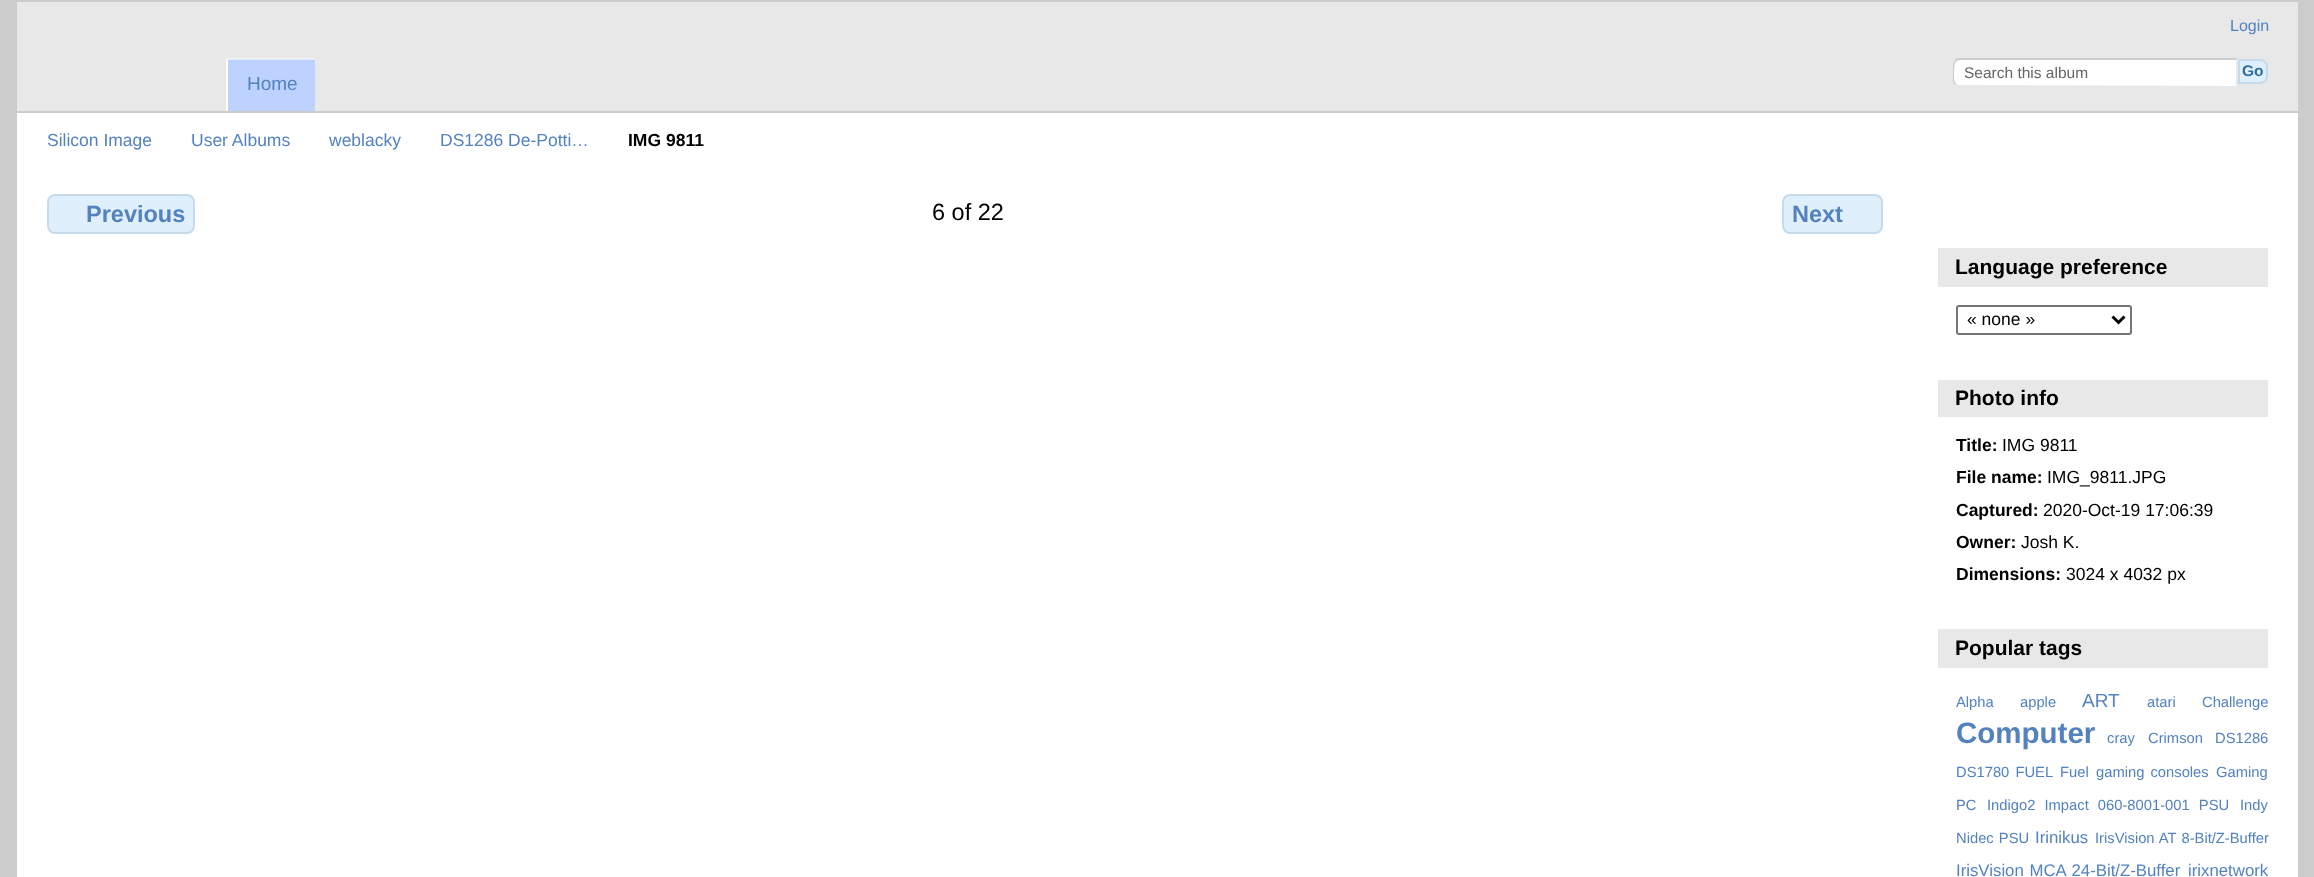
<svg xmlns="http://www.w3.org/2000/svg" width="2314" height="877">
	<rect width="100%" height="100%" fill="#CCCCCC" />
	<rect x="17" y="113" width="2281" height="764" fill="#FFFFFF" />
	<rect x="17" y="2" width="2281" height="109" fill="#E8E8E8" />
	<text x="2230" y="31" font-family="Liberation Sans" font-size="16" fill="#5382BF">Login</text>
	<path d="M1961 59H2238V87H1961C1956.5 87 1953 83.5 1953 79V67C1953 62.5 1956.5 59 1961 59Z" fill="#FFFFFF" />
	<path d="M1960 60C1958 60 1957 61 1956 62L1955 60L1958 58H2238L2236 60Z" fill="#CCCCCC" />
	<path d="M2238 58.5L2236 60.5V85L2238 87Z" fill="#E8E8E8" />
	<path d="M2238 87L2236 85V86L1959 85L1956 84L1955 85C1956 86 1958 87 1960 87Z" fill="#E8E8E8" />
	<path d="M1953 66V80C1953 82 1954 84 1955 85L1956 84C1954 81.5 1954 77.5 1954 74.5V73C1954 69.5 1954 64.5 1956 61.5L1955 60.5C1954 62 1953 64 1953 66Z" fill="#CCCCCC" />
	<text x="1964" y="78" font-family="Liberation Sans" font-size="15.5" fill="#666666">Search this album</text>
	<path d="M2239 60H2260C2264 60 2267 63 2267 67V76C2267 80 2264 83 2260 83H2239Z" fill="#DFEFFC" stroke="#C5DBEC" stroke-width="2" />
	<text x="2242" y="76" font-family="Liberation Sans" font-size="15.5" font-weight="700" fill="#2E6E9E">Go</text>
	<rect x="227" y="59" width="88" height="52" fill="#BDD2FF" />
	<path d="M226 58H315V60H228Z" fill="#FFFFFF" fill-opacity="0.5" />
	<path d="M226 111V58L228 60V111Z" fill="#FFFFFF" />
	<text x="247" y="90" font-family="Liberation Sans" font-size="19" fill="#5382BF">Home</text>
	<g font-family="Liberation Sans" font-size="17.5" fill="#5382BF">
		<text x="47" y="146">Silicon Image</text>
		<text x="191" y="146">User Albums</text>
		<text x="329" y="146">weblacky</text>
		<text x="440" y="146">DS1286 De-Potti…</text>
	</g>
	<text x="628" y="146" font-family="Liberation Sans" font-size="17.5" font-weight="700" fill="#000000">IMG 9811</text>
	<rect x="48" y="195" width="146" height="38" rx="7" fill="#DFEFFC" stroke="#C5DBEC" stroke-width="2" />
	<text x="86" y="222" font-family="Liberation Sans" font-size="23.5" font-weight="700" fill="#5382BF">Previous</text>
	<text x="932" y="220" font-family="Liberation Sans" font-size="23.5" fill="#000000">6 of 22</text>
	<rect x="1783" y="195" width="99" height="38" rx="7" fill="#DFEFFC" stroke="#C5DBEC" stroke-width="2" />
	<text x="1792" y="222" font-family="Liberation Sans" font-size="23.5" font-weight="700" fill="#5382BF">Next</text>
	<rect x="1938" y="248" width="330" height="39" fill="#E8E8E8" />
	<text x="1955" y="274" font-family="Liberation Sans" font-size="21" font-weight="700" fill="#000000">Language preference</text>
	<rect x="1957" y="306" width="174" height="28" rx="2" fill="none" stroke="#767676" stroke-width="2" />
	<path d="M2112.5 316.5L2118.5 322.5L2124.5 316.5" fill="none" stroke="#000000" stroke-width="3" />
	<text x="1967" y="325" font-family="Liberation Sans" font-size="17.5" fill="#000000">« none »</text>
	<rect x="1938" y="380" width="330" height="37" fill="#E8E8E8" />
	<text x="1955" y="405" font-family="Liberation Sans" font-size="21" font-weight="700" fill="#000000">Photo info</text>
	<text x="1956" y="451" font-family="Liberation Sans" font-size="17.5" font-weight="700" fill="#000000">Title:</text>
	<text x="2002" y="451" font-family="Liberation Sans" font-size="17.5" fill="#000000">IMG 9811</text>
	<text x="1956" y="483" font-family="Liberation Sans" font-size="17.5" font-weight="700" fill="#000000">File name:</text>
	<text x="2047" y="483" font-family="Liberation Sans" font-size="17.5" fill="#000000">IMG_9811.JPG</text>
	<text x="1956" y="516" font-family="Liberation Sans" font-size="17.5" font-weight="700" fill="#000000">Captured:</text>
	<text x="2043" y="516" font-family="Liberation Sans" font-size="17.5" fill="#000000">2020-Oct-19 17:06:39</text>
	<text x="1956" y="548" font-family="Liberation Sans" font-size="17.5" font-weight="700" fill="#000000">Owner:</text>
	<text x="2021" y="548" font-family="Liberation Sans" font-size="17.5" fill="#000000">Josh K.</text>
	<text x="1956" y="580" font-family="Liberation Sans" font-size="17.5" font-weight="700" fill="#000000">Dimensions:</text>
	<text x="2066" y="580" font-family="Liberation Sans" font-size="17.5" fill="#000000">3024 x 4032 px</text>
	<rect x="1938" y="629" width="330" height="39" fill="#E8E8E8" />
	<text x="1955" y="655" font-family="Liberation Sans" font-size="21" font-weight="700" fill="#000000">Popular tags</text>
	<g font-family="Liberation Sans" font-size="14.75" fill="#5382BF">
		<text x="1956" y="707">Alpha</text>
		<text x="2020" y="707">apple</text>
	</g>
	<text x="2082" y="707" font-family="Liberation Sans" font-size="19" fill="#5382BF">ART</text>
	<g font-family="Liberation Sans" font-size="14.75" fill="#5382BF">
		<text x="2147" y="707">atari</text>
		<text x="2202" y="707">Challenge</text>
	</g>
	<text x="1956" y="743" font-family="Liberation Sans" font-size="29.5" font-weight="700" fill="#5382BF">Computer</text>
	<g font-family="Liberation Sans" font-size="14.75" fill="#5382BF">
		<text x="2107" y="743">cray</text>
		<text x="2148" y="743">Crimson</text>
		<text x="2215" y="743">DS1286</text>
		<text x="1956" y="777" word-spacing="2">DS1780 FUEL</text>
		<text x="2060" y="777">Fuel</text>
		<text x="2096" y="777" word-spacing="2">gaming consoles</text>
		<text x="2216" y="777">Gaming</text>
		<text x="1956" y="810">PC</text>
		<text x="1987" y="810" word-spacing="5">Indigo2 Impact 060-8001-001 PSU</text>
		<text x="2240" y="810">Indy</text>
		<text x="1956" y="843" word-spacing="1">Nidec PSU</text>
	</g>
	<text x="2035" y="843" font-family="Liberation Sans" font-size="16.8" fill="#5382BF">Irinikus</text>
	<text x="2095" y="843" word-spacing="1" font-family="Liberation Sans" font-size="14.75" fill="#5382BF">IrisVision AT 8-Bit/Z-Buffer</text>
	<g font-family="Liberation Sans" font-size="16.8" fill="#5382BF">
		<text x="1956" y="876" word-spacing="1">IrisVision MCA 24-Bit/Z-Buffer</text>
		<text x="2188" y="876">irixnetwork</text>
	</g>
</svg>
